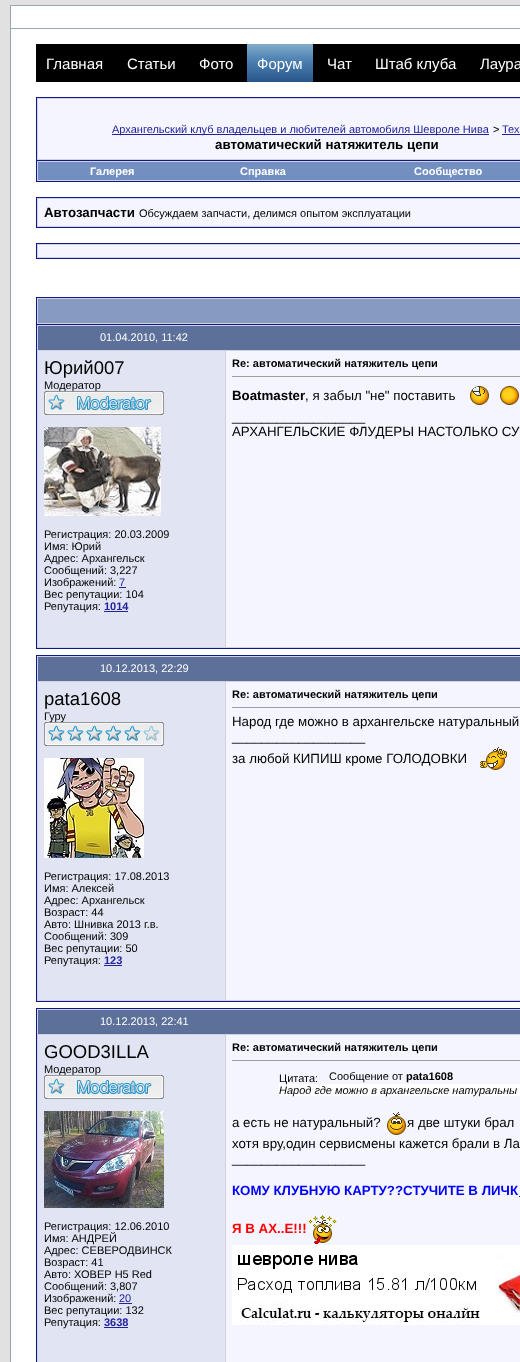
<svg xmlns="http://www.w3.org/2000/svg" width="520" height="1362">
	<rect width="100%" height="100%" fill="#E1E1E2" />
	<rect x="10.5" y="5.5" width="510" height="23" fill="#FFFFFF" stroke="#98AAB1" />
	<rect x="11" y="29" width="509" height="979" fill="#FFFFFF" />
	<rect x="10" y="29" width="1" height="1333" fill="#98AAB1" />
	<rect x="36" y="44" width="484" height="38" fill="#000000" />
	<g font-family="Liberation Sans" font-size="15" fill="#FFFFFF">
		<text x="46" y="69">Главная</text>
		<text x="127" y="69">Статьи</text>
		<text x="199" y="69">Фото</text>
	</g>
	<image x="247" y="44" width="66" height="38" href="assets/img1.png" />
	<g font-family="Liberation Sans" font-size="15" fill="#FFFFFF">
		<text x="257" y="69">Форум</text>
		<text x="327" y="69">Чат</text>
		<text x="375" y="69">Штаб клуба</text>
		<text x="480" y="69">Лаура</text>
	</g>
	<rect x="36.5" y="97.5" width="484" height="63" fill="#D1D1E1" stroke="#0B198C" />
	<rect x="38" y="99" width="482" height="60" fill="#F5F5FF" />
	<rect x="112" y="134" width="377" height="1" fill="#22229C" />
	<text x="112" y="133" font-family="Liberation Sans" font-size="11" fill="#22229C">Архангельский клуб владельцев и любителей автомобиля Шевроле Нива</text>
	<text x="493" y="133" font-family="Liberation Sans" font-size="11" fill="#000000">&gt;</text>
	<text x="502" y="133" font-family="Liberation Sans" font-size="11" fill="#22229C">Тех</text>
	<rect x="502" y="134" width="18" height="1" fill="#22229C" />
	<text x="215" y="149" font-family="Liberation Sans" font-size="13.3" font-weight="700" fill="#000000">автоматический натяжитель цепи</text>
	<rect x="37" y="161" width="483" height="20" fill="#D1D1E1" />
	<rect x="36" y="181" width="484" height="1" fill="#0B198C" />
	<rect x="36" y="161" width="1" height="21" fill="#0B198C" />
	<rect x="38" y="162" width="482" height="18" fill="#738FBF" />
	<g font-family="Liberation Sans" font-size="11" font-weight="700" fill="#FFFFFF">
		<text x="90" y="175">Галерея</text>
		<text x="240" y="175">Справка</text>
		<text x="414" y="175">Сообщество</text>
	</g>
	<rect x="36.5" y="197.5" width="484" height="30" fill="#D1D1E1" stroke="#0B198C" />
	<rect x="38" y="199" width="482" height="27" fill="#F5F5FF" />
	<text x="44" y="217" font-family="Liberation Sans" font-size="13.3" font-weight="700" fill="#000000">Автозапчасти</text>
	<text x="139" y="217" font-family="Liberation Sans" font-size="11" fill="#000000">Обсуждаем запчасти, делимся опытом эксплуатации</text>
	<rect x="36.5" y="243.5" width="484" height="15" fill="#D1D1E1" stroke="#0B198C" />
	<rect x="38" y="245" width="482" height="12" fill="#F5F5FF" />
	<rect x="37" y="298" width="483" height="26" fill="#D1D1E1" />
	<rect x="36" y="297" width="484" height="1" fill="#0B198C" />
	<rect x="36" y="297" width="1" height="27" fill="#0B198C" />
	<rect x="38" y="299" width="482" height="24" fill="#869BBF" />
	<rect x="36.5" y="324.5" width="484" height="324" fill="none" stroke="#0B198C" />
	<rect x="38" y="326" width="482" height="24" fill="#5C7099" />
	<rect x="37" y="325" width="483" height="1" fill="#D1D1E1" />
	<rect x="37" y="350" width="483" height="1" fill="#D1D1E1" />
	<rect x="37" y="325" width="1" height="293" fill="#D1D1E1" />
	<text x="100" y="341" font-family="Liberation Sans" font-size="11" fill="#FFFFFF">01.04.2010, 11:42</text>
	<rect x="38" y="351" width="187" height="296" fill="#E1E4F2" />
	<rect x="225" y="351" width="1" height="297" fill="#D1D1E1" />
	<text x="44" y="374" font-family="Liberation Sans" font-size="18.5" fill="#000000">Юрий007</text>
	<text x="44" y="389" font-family="Liberation Sans" font-size="11" fill="#000000">Модератор</text>
	<image x="44" y="391" width="120" height="24" href="assets/img2.png" />
	<image x="44" y="427" width="117" height="89" href="assets/img3.png" />
	<g font-family="Liberation Sans" font-size="11" fill="#000000">
		<text x="44" y="538">Регистрация: 20.03.2009</text>
		<text x="44" y="550">Имя: Юрий</text>
		<text x="44" y="562">Адрес: Архангельск</text>
		<text x="44" y="574">Сообщений: 3,227</text>
		<text x="44" y="586">Изображений:</text>
	</g>
	<text x="119" y="586" font-family="Liberation Sans" font-size="11" fill="#22229C">7</text>
	<rect x="119" y="587" width="7" height="1" fill="#22229C" />
	<g font-family="Liberation Sans" font-size="11" fill="#000000">
		<text x="44" y="598">Вес репутации: 104</text>
		<text x="44" y="610">Репутация:</text>
	</g>
	<text x="104" y="610" font-family="Liberation Sans" font-size="11" font-weight="700" fill="#22229C">1014</text>
	<rect x="104" y="611" width="24" height="1" fill="#22229C" />
	<rect x="226" y="351" width="294" height="296" fill="#F5F5FF" />
	<text x="232" y="367" font-family="Liberation Sans" font-size="11" font-weight="700" fill="#000000">Re: автоматический натяжитель цепи</text>
	<rect x="232" y="376" width="288" height="1" fill="#9F9F9F" />
	<text x="232" y="400" font-family="Liberation Sans" font-size="13.3" font-weight="700" fill="#000000">Boatmaster</text>
	<text x="305" y="400" font-family="Liberation Sans" font-size="13.3" fill="#000000">, я забыл "не" поставить</text>
	<image x="470" y="386" width="19" height="19" href="assets/img4.png" />
	<image x="500" y="386" width="19" height="19" href="assets/img5.png" />
	<g font-family="Liberation Sans" font-size="13.3" fill="#000000">
		<text x="232" y="421">__________________</text>
		<text x="232" y="436">АРХАНГЕЛЬСКИЕ ФЛУДЕРЫ НАСТОЛЬКО СУ</text>
	</g>
	<rect x="37" y="647" width="483" height="1" fill="#D1D1E1" />
	<rect x="37" y="618" width="1" height="30" fill="#D1D1E1" />
	<rect x="36.5" y="655.5" width="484" height="346" fill="none" stroke="#0B198C" />
	<rect x="38" y="657" width="482" height="24" fill="#5C7099" />
	<rect x="37" y="656" width="483" height="1" fill="#D1D1E1" />
	<rect x="37" y="681" width="483" height="1" fill="#D1D1E1" />
	<rect x="37" y="656" width="1" height="316" fill="#D1D1E1" />
	<text x="100" y="672" font-family="Liberation Sans" font-size="11" fill="#FFFFFF">10.12.2013, 22:29</text>
	<rect x="38" y="682" width="187" height="318" fill="#E1E4F2" />
	<rect x="225" y="682" width="1" height="319" fill="#D1D1E1" />
	<text x="44" y="705" font-family="Liberation Sans" font-size="18.5" fill="#000000">pata1608</text>
	<text x="44" y="720" font-family="Liberation Sans" font-size="11" fill="#000000">Гуру</text>
	<image x="44" y="722" width="120" height="24" href="assets/img6.png" />
	<image x="44" y="758" width="100" height="100" href="assets/img7.png" />
	<g font-family="Liberation Sans" font-size="11" fill="#000000">
		<text x="44" y="880">Регистрация: 17.08.2013</text>
		<text x="44" y="892">Имя: Алексей</text>
		<text x="44" y="904">Адрес: Архангельск</text>
		<text x="44" y="916">Возраст: 44</text>
		<text x="44" y="928">Авто: Шнивка 2013 г.в.</text>
		<text x="44" y="940">Сообщений: 309</text>
		<text x="44" y="952">Вес репутации: 50</text>
		<text x="44" y="964">Репутация:</text>
	</g>
	<text x="104" y="964" font-family="Liberation Sans" font-size="11" font-weight="700" fill="#22229C">123</text>
	<rect x="104" y="965" width="18" height="1" fill="#22229C" />
	<rect x="226" y="682" width="294" height="318" fill="#F5F5FF" />
	<text x="232" y="698" font-family="Liberation Sans" font-size="11" font-weight="700" fill="#000000">Re: автоматический натяжитель цепи</text>
	<rect x="232" y="707" width="288" height="1" fill="#9F9F9F" />
	<g font-family="Liberation Sans" font-size="13.3" fill="#000000">
		<text x="232" y="726">Народ где можно в архангельске натуральный</text>
		<text x="232" y="741">__________________</text>
		<text x="232" y="763">за любой КИПИШ кроме ГОЛОДОВКИ</text>
	</g>
	<image x="480" y="747" width="27" height="23" href="assets/img8.png" />
	<rect x="37" y="1000" width="483" height="1" fill="#D1D1E1" />
	<rect x="37" y="972" width="1" height="29" fill="#D1D1E1" />
	<rect x="11" y="1008" width="25" height="354" fill="#FFFFFF" />
	<rect x="36.5" y="1008.5" width="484" height="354" fill="none" stroke="#0B198C" />
	<rect x="38" y="1010" width="482" height="24" fill="#5C7099" />
	<rect x="37" y="1009" width="483" height="1" fill="#D1D1E1" />
	<rect x="37" y="1034" width="483" height="1" fill="#D1D1E1" />
	<rect x="37" y="1009" width="1" height="353" fill="#D1D1E1" />
	<text x="100" y="1025" font-family="Liberation Sans" font-size="11" fill="#FFFFFF">10.12.2013, 22:41</text>
	<rect x="38" y="1035" width="187" height="327" fill="#E1E4F2" />
	<rect x="225" y="1035" width="1" height="327" fill="#D1D1E1" />
	<text x="44" y="1058" font-family="Liberation Sans" font-size="18.5" fill="#000000">GOOD3ILLA</text>
	<text x="44" y="1073" font-family="Liberation Sans" font-size="11" fill="#000000">Модератор</text>
	<image x="44" y="1075" width="120" height="24" href="assets/img2.png" />
	<image x="44" y="1111" width="120" height="97" href="assets/img9.png" />
	<g font-family="Liberation Sans" font-size="11" fill="#000000">
		<text x="44" y="1230">Регистрация: 12.06.2010</text>
		<text x="44" y="1242">Имя: АНДРЕЙ</text>
		<text x="44" y="1254">Адрес: СЕВЕРОДВИНСК</text>
		<text x="44" y="1266">Возраст: 41</text>
		<text x="44" y="1278">Авто: ХОВЕР Н5 Red</text>
		<text x="44" y="1290">Сообщений: 3,807</text>
		<text x="44" y="1302">Изображений:</text>
	</g>
	<text x="119" y="1302" font-family="Liberation Sans" font-size="11" fill="#22229C">20</text>
	<rect x="119" y="1303" width="13" height="1" fill="#22229C" />
	<g font-family="Liberation Sans" font-size="11" fill="#000000">
		<text x="44" y="1314">Вес репутации: 132</text>
		<text x="44" y="1326">Репутация:</text>
	</g>
	<text x="104" y="1326" font-family="Liberation Sans" font-size="11" font-weight="700" fill="#22229C">3638</text>
	<rect x="104" y="1327" width="24" height="1" fill="#22229C" />
	<rect x="226" y="1035" width="294" height="327" fill="#F5F5FF" />
	<text x="232" y="1051" font-family="Liberation Sans" font-size="11" font-weight="700" fill="#000000">Re: автоматический натяжитель цепи</text>
	<rect x="232" y="1060" width="288" height="1" fill="#9F9F9F" />
	<rect x="279" y="1084" width="241" height="12" fill="#FFFFFF" />
	<g font-family="Liberation Sans" font-size="11" fill="#000000">
		<text x="279" y="1082">Цитата:</text>
		<text x="329" y="1080">Сообщение от</text>
	</g>
	<text x="406" y="1080" font-family="Liberation Sans" font-size="11" font-weight="700" fill="#000000">pata1608</text>
	<text x="279" y="1094" font-family="Liberation Sans" font-size="11" font-style="italic" fill="#000000">Народ где можно в архангельске натуральны</text>
	<text x="232" y="1127" font-family="Liberation Sans" font-size="13.3" fill="#000000">а есть не натуральный?</text>
	<image x="387" y="1112" width="19" height="23" href="assets/img10.png" />
	<g font-family="Liberation Sans" font-size="13.3" fill="#000000">
		<text x="407" y="1127">я две штуки брал</text>
		<text x="232" y="1148">хотя вру,один сервисмены кажется брали в Ла</text>
		<text x="232" y="1163">__________________</text>
	</g>
	<text x="232" y="1195" font-family="Liberation Sans" font-size="13.3" font-weight="700" fill="#0000FF">КОМУ КЛУБНУЮ КАРТУ??СТУЧИТЕ В ЛИЧК</text>
	<rect x="519" y="1196" width="1" height="1" fill="#0000FF" />
	<text x="232" y="1233" font-family="Liberation Sans" font-size="13.3" font-weight="700" fill="#FF0000">Я В АХ..Е!!!</text>
	<image x="308" y="1215" width="29" height="29" href="assets/img11.png" />
	<image x="232" y="1245" width="288" height="80" href="assets/img12.png" />
</svg>
